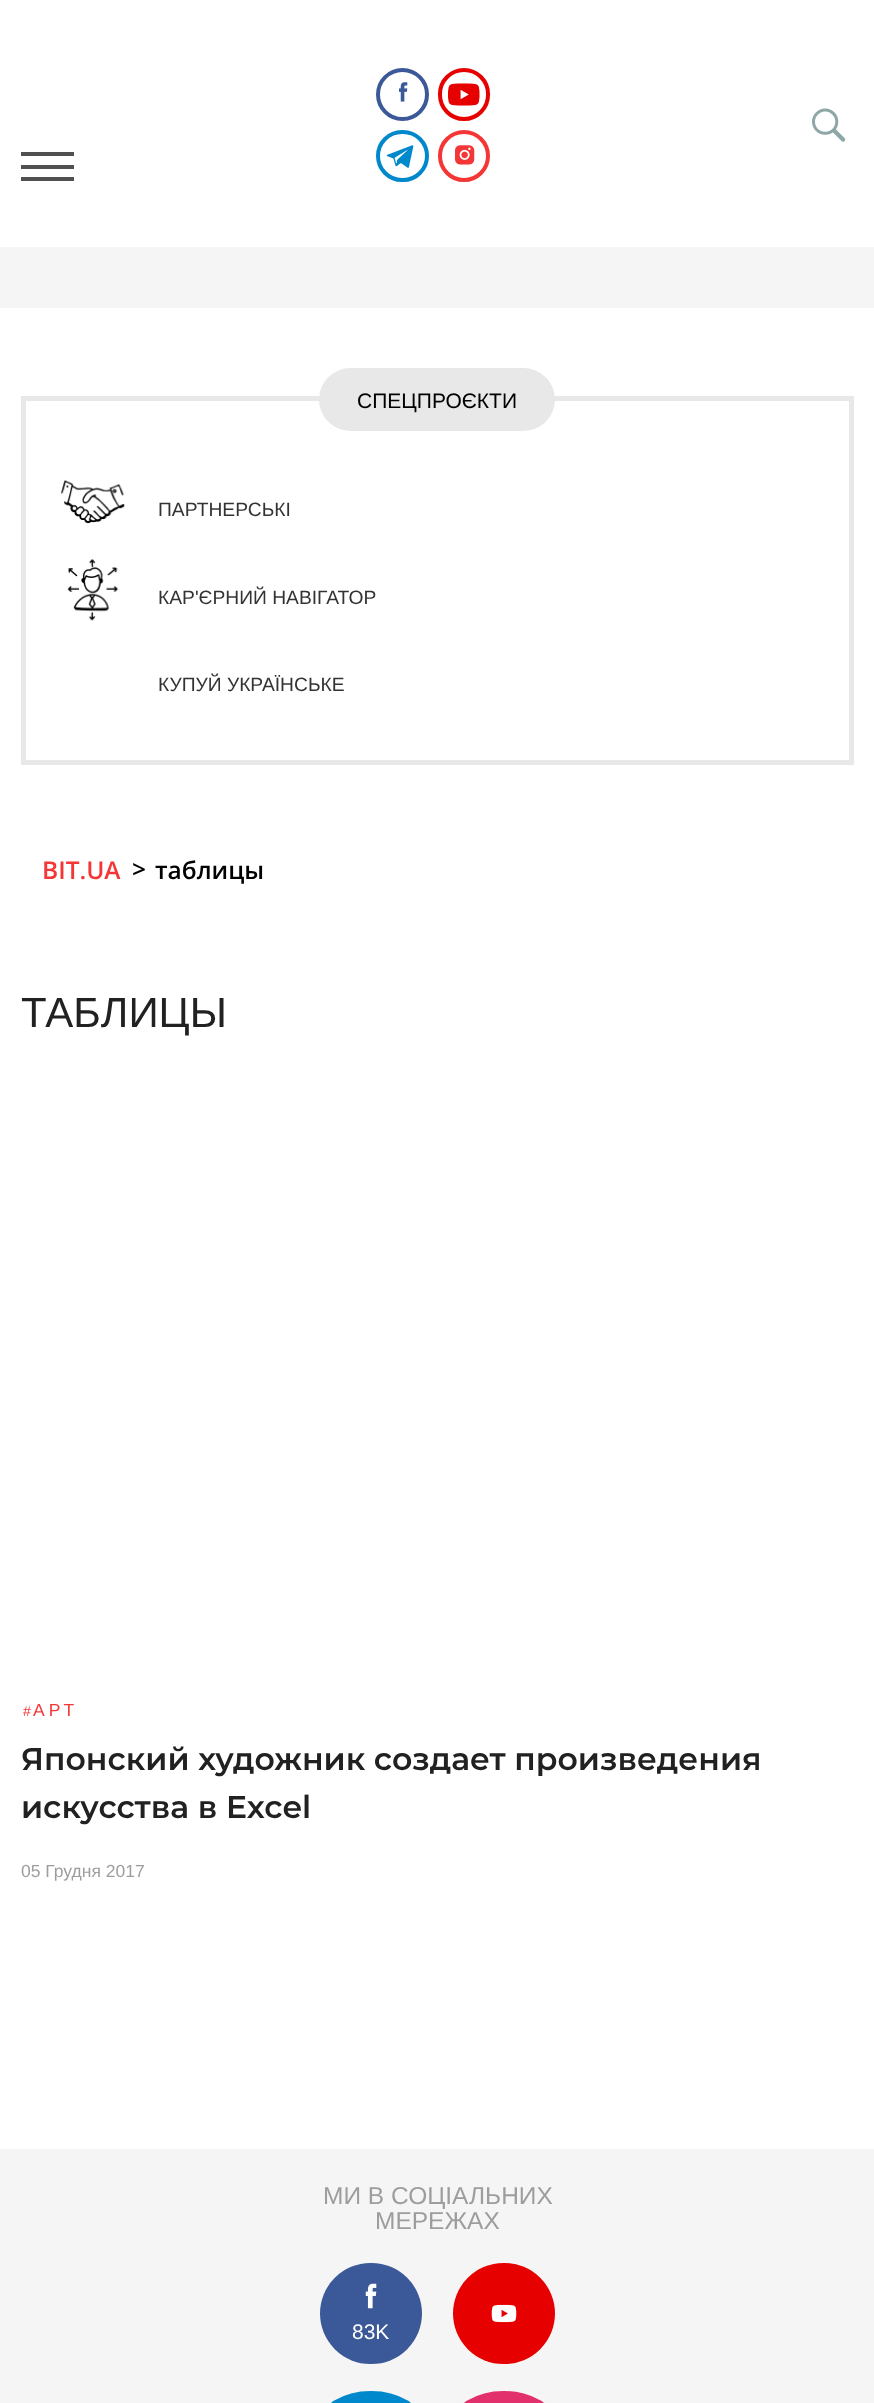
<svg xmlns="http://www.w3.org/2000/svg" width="874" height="2403">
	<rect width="100%" height="100%" fill="#FFFFFF" />
	<circle cx="402.5" cy="94.5" r="24.5" fill="none" stroke="#3B5998" stroke-width="4" />
	<image x="399" y="82" width="9" height="20" href="assets/img1.png" />
	<rect x="440" y="70" width="48" height="49" rx="24" fill="none" stroke="#E60000" stroke-width="4" />
	<image x="448" y="83" width="32" height="23" href="assets/img2.png" />
	<rect x="378" y="132" width="49" height="48" rx="24" fill="none" stroke="#0088CC" stroke-width="4" />
	<image x="386" y="145" width="28" height="23" href="assets/img3.png" />
	<circle cx="464" cy="156" r="24" fill="none" stroke="#F43637" stroke-width="4" />
	<image x="455" y="145" width="20" height="20" href="assets/img4.png" />
	<image x="812" y="108" width="34" height="34" href="assets/img5.png" />
	<rect x="0" y="247" width="874" height="61" fill="#F5F5F5" />
	<rect x="21" y="165" width="53" height="4" fill="#505050" />
	<rect x="21" y="152" width="53" height="4" fill="#505050" />
	<rect x="21" y="177" width="53" height="4" fill="#505050" />
	<rect x="23.5" y="398.5" width="828" height="364" fill="none" stroke="#E8E8E8" stroke-width="5" />
	<rect x="319" y="368" width="236" height="63" rx="31.5" fill="#E8E8E8" />
	<text x="357" y="408" font-family="Liberation Sans" font-size="21" fill="#000000">СПЕЦПРОЄКТИ</text>
	<image x="61" y="480" width="64" height="44" href="assets/img6.png" />
	<text x="158" y="516" font-family="Liberation Sans" font-size="19.25" fill="#333333">ПАРТНЕРСЬКІ</text>
	<image x="67" y="559" width="52" height="62" href="assets/img7.png" />
	<g font-family="Liberation Sans" font-size="19.25" fill="#333333">
		<text x="158" y="604">КАР'ЄРНИЙ НАВІГАТОР</text>
		<text x="158" y="691">КУПУЙ УКРАЇНСЬКЕ</text>
	</g>
	<text x="42" y="879" font-family="Open Sans" font-size="24.5" font-weight="600" fill="#F43637">BIT.UA</text>
	<g font-family="Open Sans" font-size="24.5" font-weight="600" fill="#000000">
		<text x="132" y="878">&gt;</text>
		<text x="155" y="879">таблицы</text>
	</g>
	<text x="21" y="1027" font-family="Liberation Sans" font-size="42" fill="#212121">ТАБЛИЦЫ</text>
	<text x="23" y="1716" font-family="Liberation Sans" font-size="14" letter-spacing="4" fill="#F43637">#</text>
	<text x="33" y="1716" font-family="Liberation Sans" font-size="17.5" letter-spacing="4" fill="#F43637">АРТ</text>
	<g font-family="Montserrat" font-size="31.5" font-weight="600" fill="#212121">
		<text x="21" y="1770">Японский художник создает произведения</text>
		<text x="21" y="1818">искусства в Excel</text>
	</g>
	<text x="21" y="1877" font-family="Liberation Sans" font-size="17.5" fill="#9D9D9D">05 Грудня 2017</text>
	<rect x="0" y="2149" width="874" height="254" fill="#F5F5F5" />
	<g font-family="Liberation Sans" font-size="24.5" fill="#9D9D9D">
		<text x="323" y="2204">МИ В СОЦІАЛЬНИХ</text>
		<text x="375" y="2229">МЕРЕЖАХ</text>
	</g>
	<rect x="320" y="2263" width="102" height="101" rx="50.5" fill="#3B5998" />
	<image x="365" y="2283" width="12" height="26" href="assets/img8.png" />
	<text x="352" y="2339" font-family="Liberation Sans" font-size="21" fill="#FFFFFF">83K</text>
	<rect x="453" y="2263" width="102" height="101" rx="50.5" fill="#E60000" />
	<image x="491" y="2304" width="26" height="19" href="assets/img9.png" />
	<rect x="320" y="2391" width="102" height="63" rx="50.5" fill="#0088CC" />
	<rect x="453" y="2391" width="102" height="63" rx="50.5" fill="#E1306C" />
</svg>
